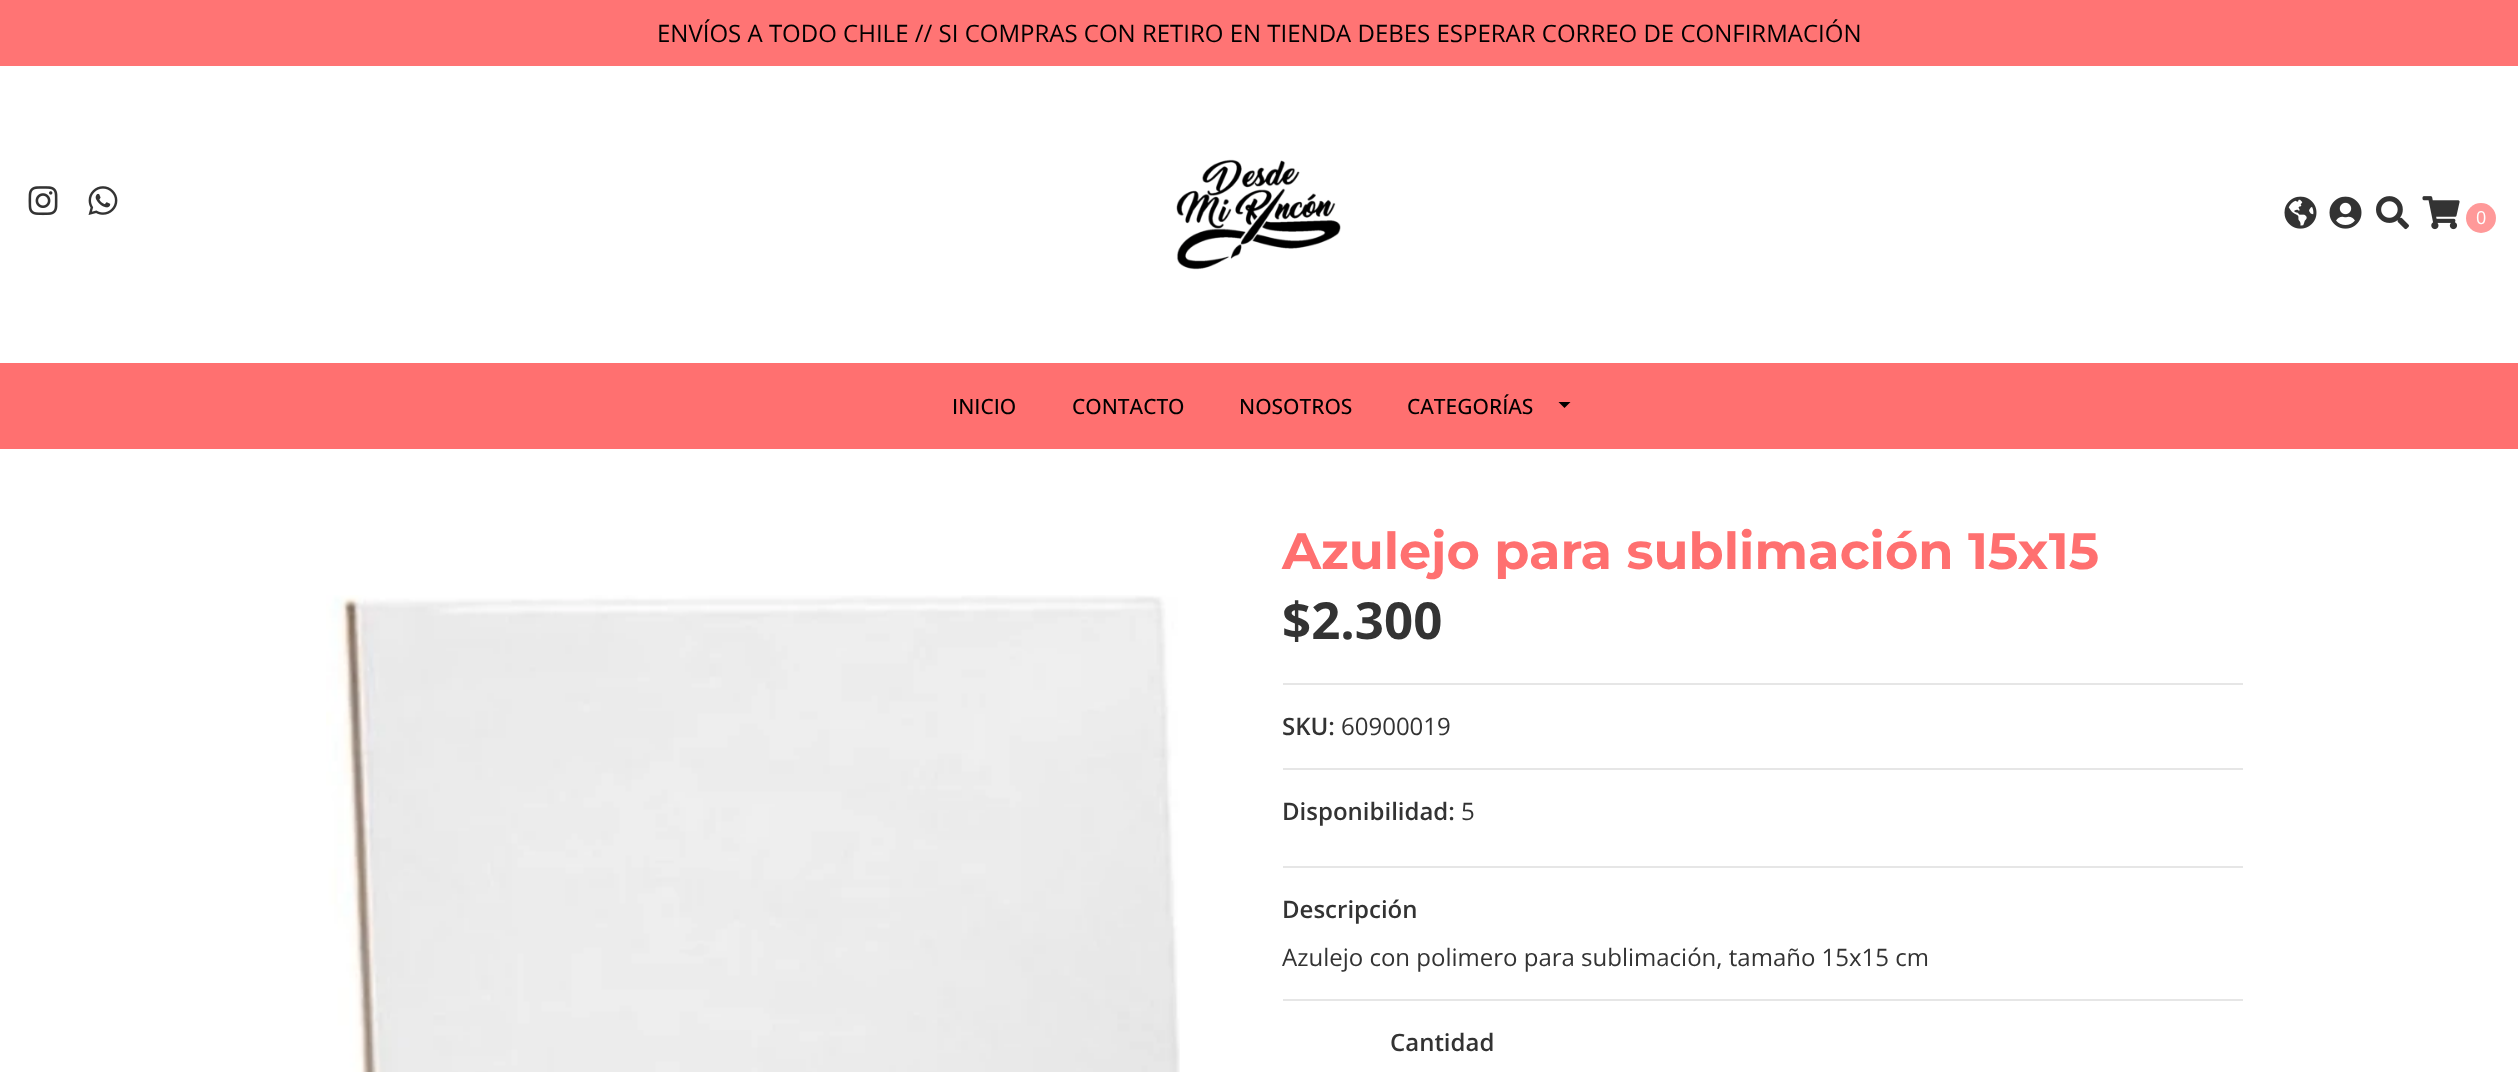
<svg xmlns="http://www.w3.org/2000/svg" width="2518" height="1072">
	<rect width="100%" height="100%" fill="#FFFFFF" />
	<rect x="0" y="0" width="2518" height="66" fill="#FF7474" />
	<text x="657" y="42" font-family="Open Sans" font-size="24" fill="#000000">ENVÍOS A TODO CHILE // SI COMPRAS CON RETIRO EN TIENDA DEBES ESPERAR CORREO DE CONFIRMACIÓN</text>
	<image x="28" y="186" width="30" height="30" href="assets/img1.png" />
	<image x="88" y="186" width="30" height="29" href="assets/img2.png" />
	<image x="1176" y="159" width="165" height="111" href="assets/img3.png" />
	<image x="2284" y="196" width="33" height="33" href="assets/img4.png" />
	<image x="2329" y="196" width="33" height="33" href="assets/img5.png" />
	<image x="2376" y="196" width="33" height="34" href="assets/img6.png" />
	<image x="2422" y="196" width="38" height="34" href="assets/img7.png" />
	<circle cx="2481" cy="218" r="15" fill="#FF9999" />
	<text x="2476" y="224" font-family="Open Sans" font-size="18" fill="#FFFFFF">0</text>
	<rect x="0" y="363" width="2518" height="86" fill="#FF7070" />
	<g font-family="Open Sans" font-size="21" font-weight="500" fill="#000000">
		<text x="952" y="414">INICIO</text>
		<text x="1072" y="414">CONTACTO</text>
		<text x="1239" y="414">NOSOTROS</text>
		<text x="1407" y="414">CATEGORÍAS</text>
	</g>
	<path d="M1558.5 402H1570.5L1564.5 408Z" fill="#000000" />
	<image x="326" y="595" width="854" height="477" href="assets/img8.png" />
	<rect x="1283" y="683" width="960" height="2" fill="#E6E6E6" />
	<text x="1282" y="569" font-family="Montserrat" font-size="51" font-weight="700" fill="#FF7070">Azulejo para sublimación 15x15</text>
	<text x="1282" y="639" font-family="Open Sans" font-size="51" font-weight="700" fill="#333333">$2.300</text>
	<rect x="1283" y="768" width="960" height="2" fill="#E6E6E6" />
	<text x="1282" y="735" font-family="Open Sans" font-size="24" font-weight="600" fill="#333333">SKU:</text>
	<text x="1341" y="735" font-family="Open Sans" font-size="24" fill="#333333">60900019</text>
	<rect x="1283" y="866" width="960" height="2" fill="#E6E6E6" />
	<text x="1282" y="820" font-family="Open Sans" font-size="24" font-weight="600" fill="#333333">Disponibilidad:</text>
	<text x="1461" y="820" font-family="Open Sans" font-size="24" fill="#333333">5</text>
	<rect x="1283" y="999" width="960" height="2" fill="#E6E6E6" />
	<text x="1282" y="918" font-family="Open Sans" font-size="24" font-weight="600" fill="#333333">Descripción</text>
	<text x="1282" y="966" font-family="Open Sans" font-size="24" fill="#333333">Azulejo con polimero para sublimación, tamaño 15x15 cm</text>
	<text x="1390" y="1051" font-family="Open Sans" font-size="24" font-weight="600" fill="#333333">Cantidad</text>
</svg>
